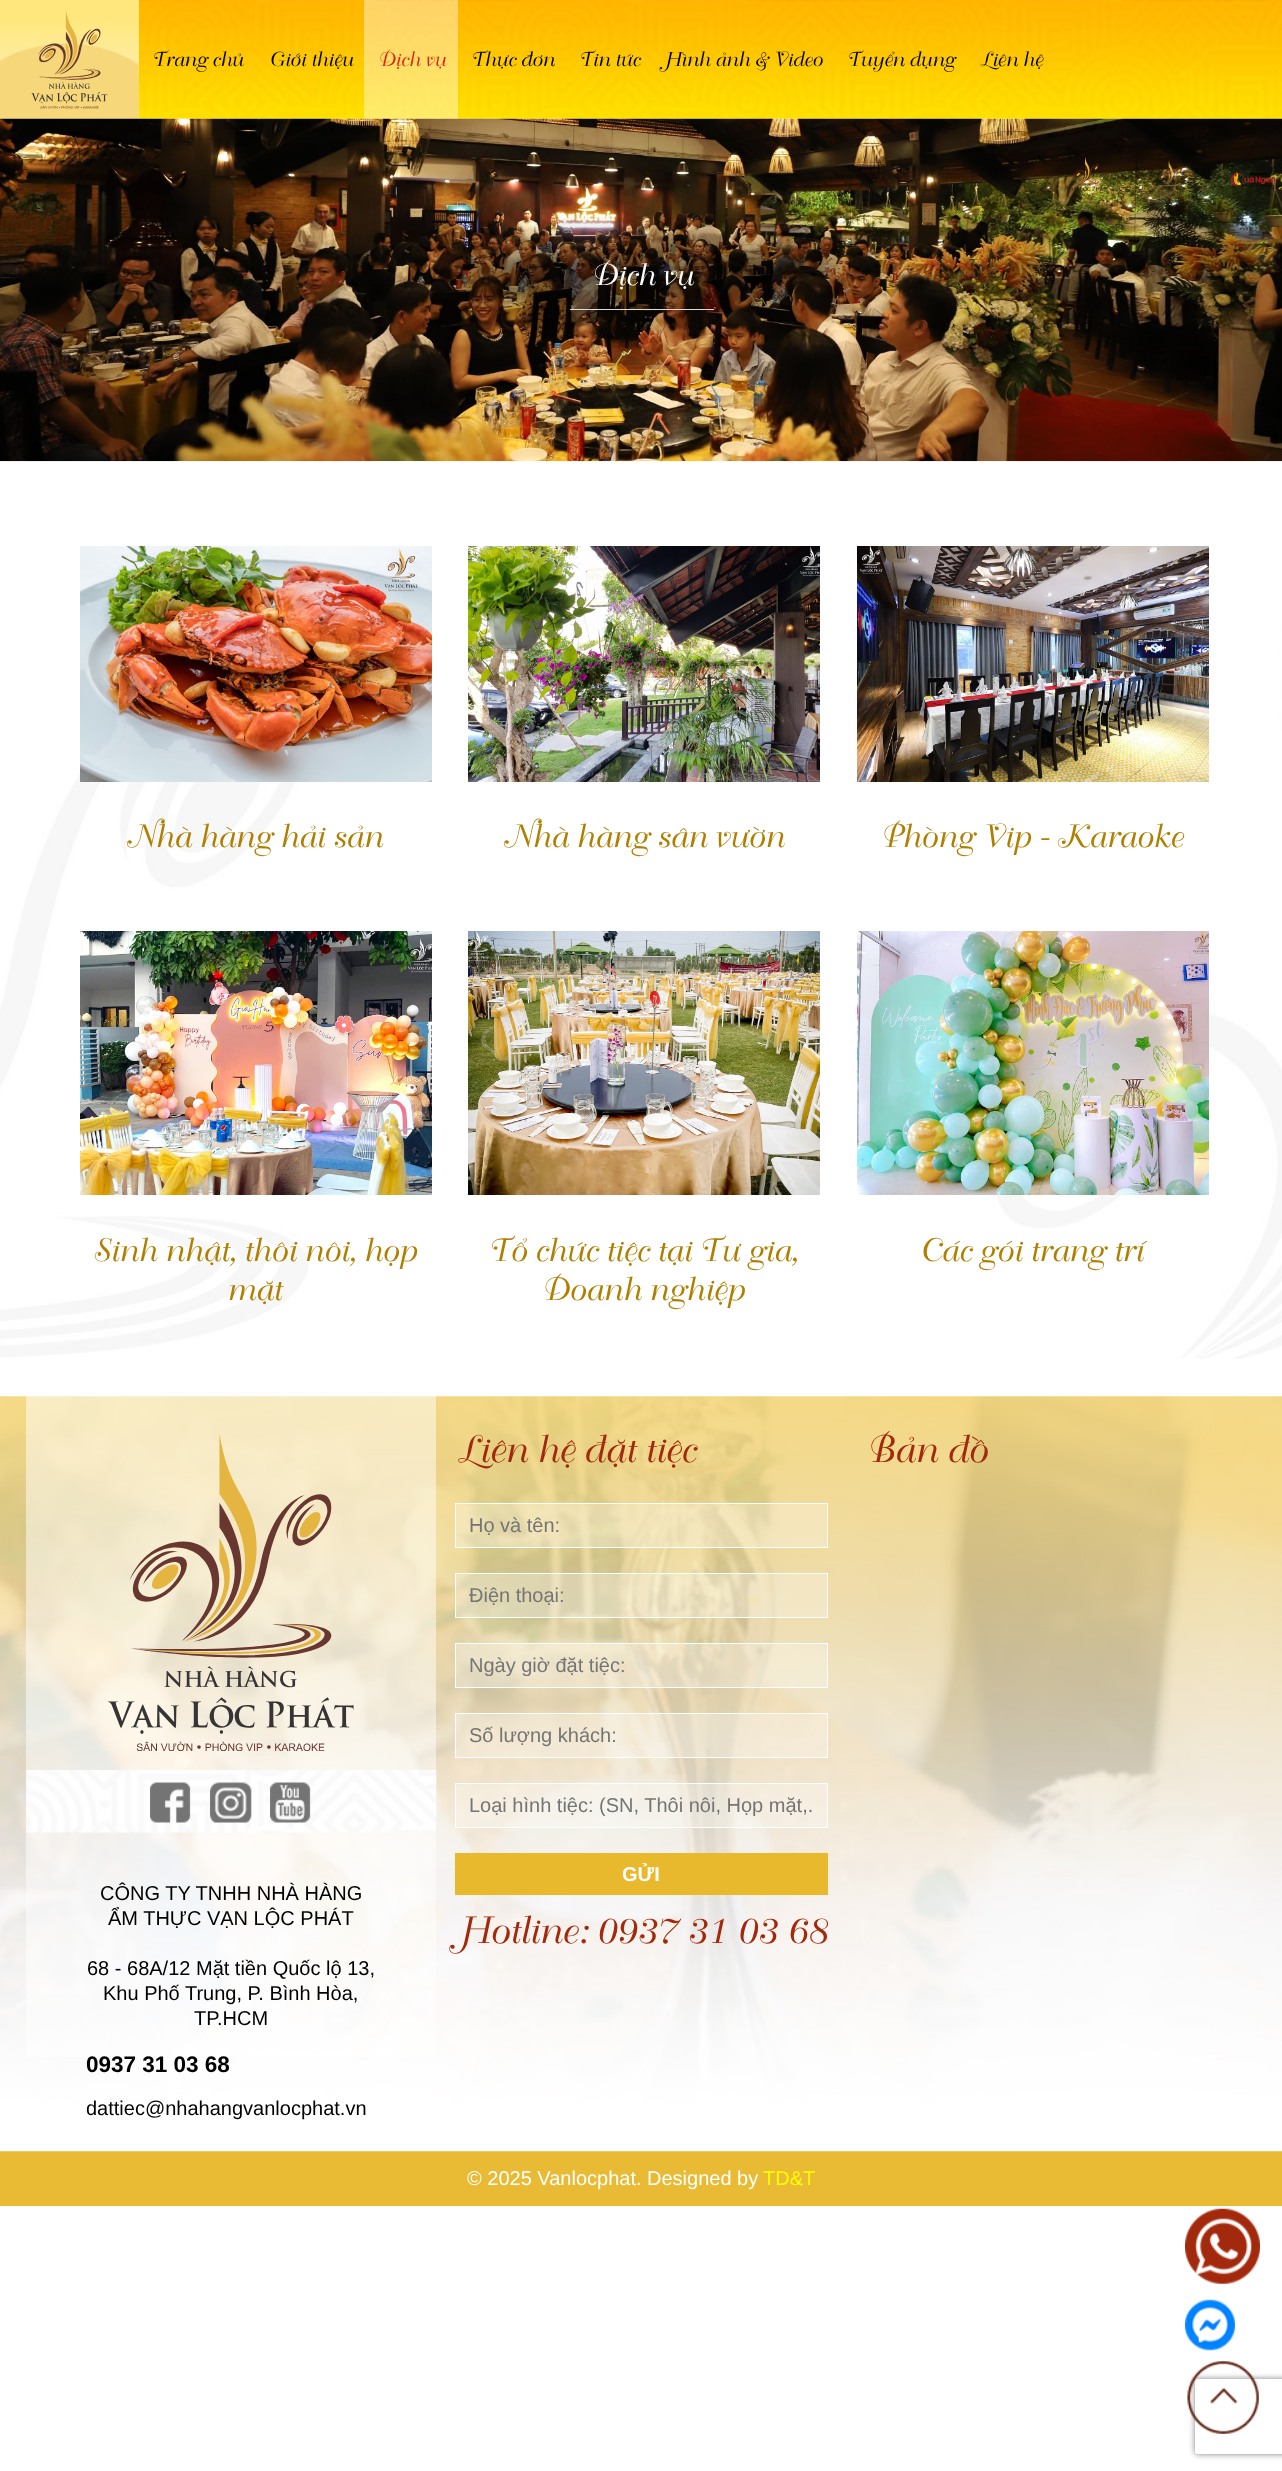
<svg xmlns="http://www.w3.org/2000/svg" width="1282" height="2471">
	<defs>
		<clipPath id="clip1"><rect x="469" y="1654" width="345" height="22" /></clipPath>
		<clipPath id="clip2"><rect x="469" y="1794" width="345" height="22" /></clipPath>
		<clipPath id="clip3"><path d="M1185 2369H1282V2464H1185ZM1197.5 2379H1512.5C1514 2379 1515 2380 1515 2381.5V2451.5C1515 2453 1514 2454 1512.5 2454H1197.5C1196 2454 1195 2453 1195 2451.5V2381.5C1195 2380 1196 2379 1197.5 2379Z" clip-rule="evenodd" /></clipPath>
	</defs>
	<rect width="100%" height="100%" fill="#FFFFFF" />
	<image x="139" y="0" width="1143" height="119" href="assets/img1.png" />
	<rect x="0" y="0" width="139" height="119" fill="#FFE77D" />
	<image x="0" y="22" width="139" height="97" href="assets/img2.png" />
	<image x="31" y="10" width="77" height="99" href="assets/img3.png" />
	<g font-family="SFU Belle" font-size="20" fill="#000000">
		<text x="151" y="66">Trang chủ</text>
		<text x="268" y="66">Giới thiệu</text>
	</g>
	<rect x="364" y="0" width="94" height="119" fill="#FFFFFF" fill-opacity="0.4" />
	<text x="377" y="66" font-family="SFU Belle" font-size="20" fill="#D7271A">Dịch vụ</text>
	<g font-family="SFU Belle" font-size="20" fill="#000000">
		<text x="470" y="66">Thực đơn</text>
		<text x="578" y="66">Tin tức</text>
		<text x="664" y="66">Hình ảnh &amp; Video</text>
		<text x="846" y="66">Tuyển dụng</text>
		<text x="979" y="66">Liên hệ</text>
	</g>
	<image x="0" y="118" width="1282" height="344" href="assets/img7.png" />
	<image x="1066" y="157" width="41" height="43" href="assets/img4.png" />
	<image x="1156" y="160" width="28" height="37" href="assets/img5.png" />
	<image x="1230" y="172" width="46" height="15" href="assets/img6.png" />
	<image x="420" y="217" width="446" height="121" href="assets/img8.png" />
	<text x="590" y="285" font-family="SFU Belle" font-size="30" fill="#FFFFFF">Dịch vụ</text>
	<rect x="570" y="309" width="144" height="1" fill="#DBDBDB" />
	<image x="0" y="461" width="1282" height="898" href="assets/img9.png" />
	<image x="80" y="546" width="352" height="236" href="assets/img10.png" />
	<text x="124" y="847" font-family="SFU Belle" font-size="32" fill="#AF7F00">Nhà hàng hải sản</text>
	<image x="468" y="546" width="352" height="236" href="assets/img11.png" />
	<text x="501" y="847" font-family="SFU Belle" font-size="32" fill="#AF7F00">Nhà hàng sân vườn</text>
	<image x="857" y="546" width="352" height="236" href="assets/img12.png" />
	<text x="879" y="847" font-family="SFU Belle" font-size="32" fill="#AF7F00">Phòng Vip - Karaoke</text>
	<image x="80" y="931" width="352" height="264" href="assets/img13.png" />
	<g font-family="SFU Belle" font-size="32" fill="#AF7F00">
		<text x="91" y="1261">Sinh nhật, thôi nôi, họp</text>
		<text x="225" y="1300">mặt</text>
	</g>
	<image x="468" y="931" width="352" height="264" href="assets/img14.png" />
	<g font-family="SFU Belle" font-size="32" fill="#AF7F00">
		<text x="487" y="1261">Tổ chức tiệc tại Tư gia,</text>
		<text x="540" y="1300">Doanh nghiệp</text>
	</g>
	<image x="857" y="931" width="352" height="264" href="assets/img15.png" />
	<text x="918" y="1261" font-family="SFU Belle" font-size="32" fill="#AF7F00">Các gói trang trí</text>
	<rect x="0" y="2151" width="1282" height="55" fill="#E9BB35" />
	<image x="0" y="1396" width="1282" height="756" href="assets/img16.png" />
	<text x="455" y="1462" font-family="SFU Belle" font-size="37.5" fill="#A3290D">Liên hệ đặt tiệc</text>
	<rect x="455.5" y="1503.5" width="372" height="44" fill="#FFFFFF" fill-opacity="0.3" stroke="#FFFFFF" />
	<text x="469" y="1532" font-family="Liberation Sans" font-size="20" fill="#757575">Họ và tên:</text>
	<rect x="455.5" y="1573.5" width="372" height="44" fill="#FFFFFF" fill-opacity="0.3" stroke="#FFFFFF" />
	<text x="469" y="1602" font-family="Liberation Sans" font-size="20" fill="#757575">Điện thoại:</text>
	<rect x="455.5" y="1643.5" width="372" height="44" fill="#FFFFFF" fill-opacity="0.3" stroke="#FFFFFF" />
	<g clip-path="url(#clip1)">
		<text x="469" y="1672" font-family="Liberation Sans" font-size="20" fill="#757575">Ngày giờ đặt tiệc:</text>
	</g>
	<rect x="455.5" y="1713.5" width="372" height="44" fill="#FFFFFF" fill-opacity="0.3" stroke="#FFFFFF" />
	<text x="469" y="1742" font-family="Liberation Sans" font-size="20" fill="#757575">Số lượng khách:</text>
	<rect x="455.5" y="1783.5" width="372" height="44" fill="#FFFFFF" fill-opacity="0.3" stroke="#FFFFFF" />
	<g clip-path="url(#clip2)">
		<text x="469" y="1812" font-family="Liberation Sans" font-size="20" fill="#757575">Loại hình tiệc: (SN, Thôi nôi, Họp mặt,.</text>
	</g>
	<rect x="455" y="1853" width="373" height="42" fill="#E8B82D" />
	<text x="622" y="1881" font-family="Liberation Sans" font-size="20" font-weight="700" fill="#FFFFFF">GỬI</text>
	<g font-family="SFU Belle" font-size="37.5" fill="#A3290D">
		<text x="458" y="1943">Hotline: 0937 31 03 68</text>
		<text x="865" y="1462">Bản đồ</text>
	</g>
	<rect x="26" y="1396" width="410" height="661" fill="#FFFFFF" fill-opacity="0.5" />
	<image x="108" y="1434" width="246" height="317" href="assets/img17.png" />
	<image x="26" y="1770" width="411" height="63" href="assets/img18.png" />
	<image x="150" y="1782" width="41" height="41" href="assets/img19.png" />
	<image x="210" y="1782" width="42" height="41" href="assets/img20.png" />
	<image x="270" y="1782" width="41" height="41" href="assets/img21.png" />
	<g font-family="Liberation Sans" font-size="20" fill="#000000">
		<text x="100" y="1900">CÔNG TY TNHH NHÀ HÀNG</text>
		<text x="108" y="1925">ẨM THỰC VẠN LỘC PHÁT</text>
		<text x="87" y="1975">68 - 68A/12 Mặt tiền Quốc lộ 13,</text>
		<text x="103" y="2000">Khu Phố Trung, P. Bình Hòa,</text>
		<text x="194" y="2025">TP.HCM</text>
	</g>
	<text x="86" y="2072" font-family="Liberation Sans" font-size="22.5" font-weight="700" fill="#000000">0937 31 03 68</text>
	<text x="86" y="2115" font-family="Liberation Sans" font-size="20" fill="#000000">dattiec@nhahangvanlocphat.vn</text>
	<text x="467" y="2185" font-family="Liberation Sans" font-size="20" fill="#FFFFFF">© 2025 Vanlocphat. Designed by</text>
	<text x="763" y="2185" font-family="Liberation Sans" font-size="20" fill="#FFFF00">TD&amp;T</text>
	<image x="1185" y="2208" width="75" height="76" href="assets/img22.png" />
	<image x="1185" y="2299" width="50" height="52" href="assets/img23.png" />
	<g clip-path="url(#clip3)">
		<rect x="1195" y="2379" width="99" height="75" rx="2.5" fill="#808080" filter="blur(3px)" />
	</g>
	<image x="1187" y="2361" width="72" height="73" href="assets/img24.png" />
</svg>
